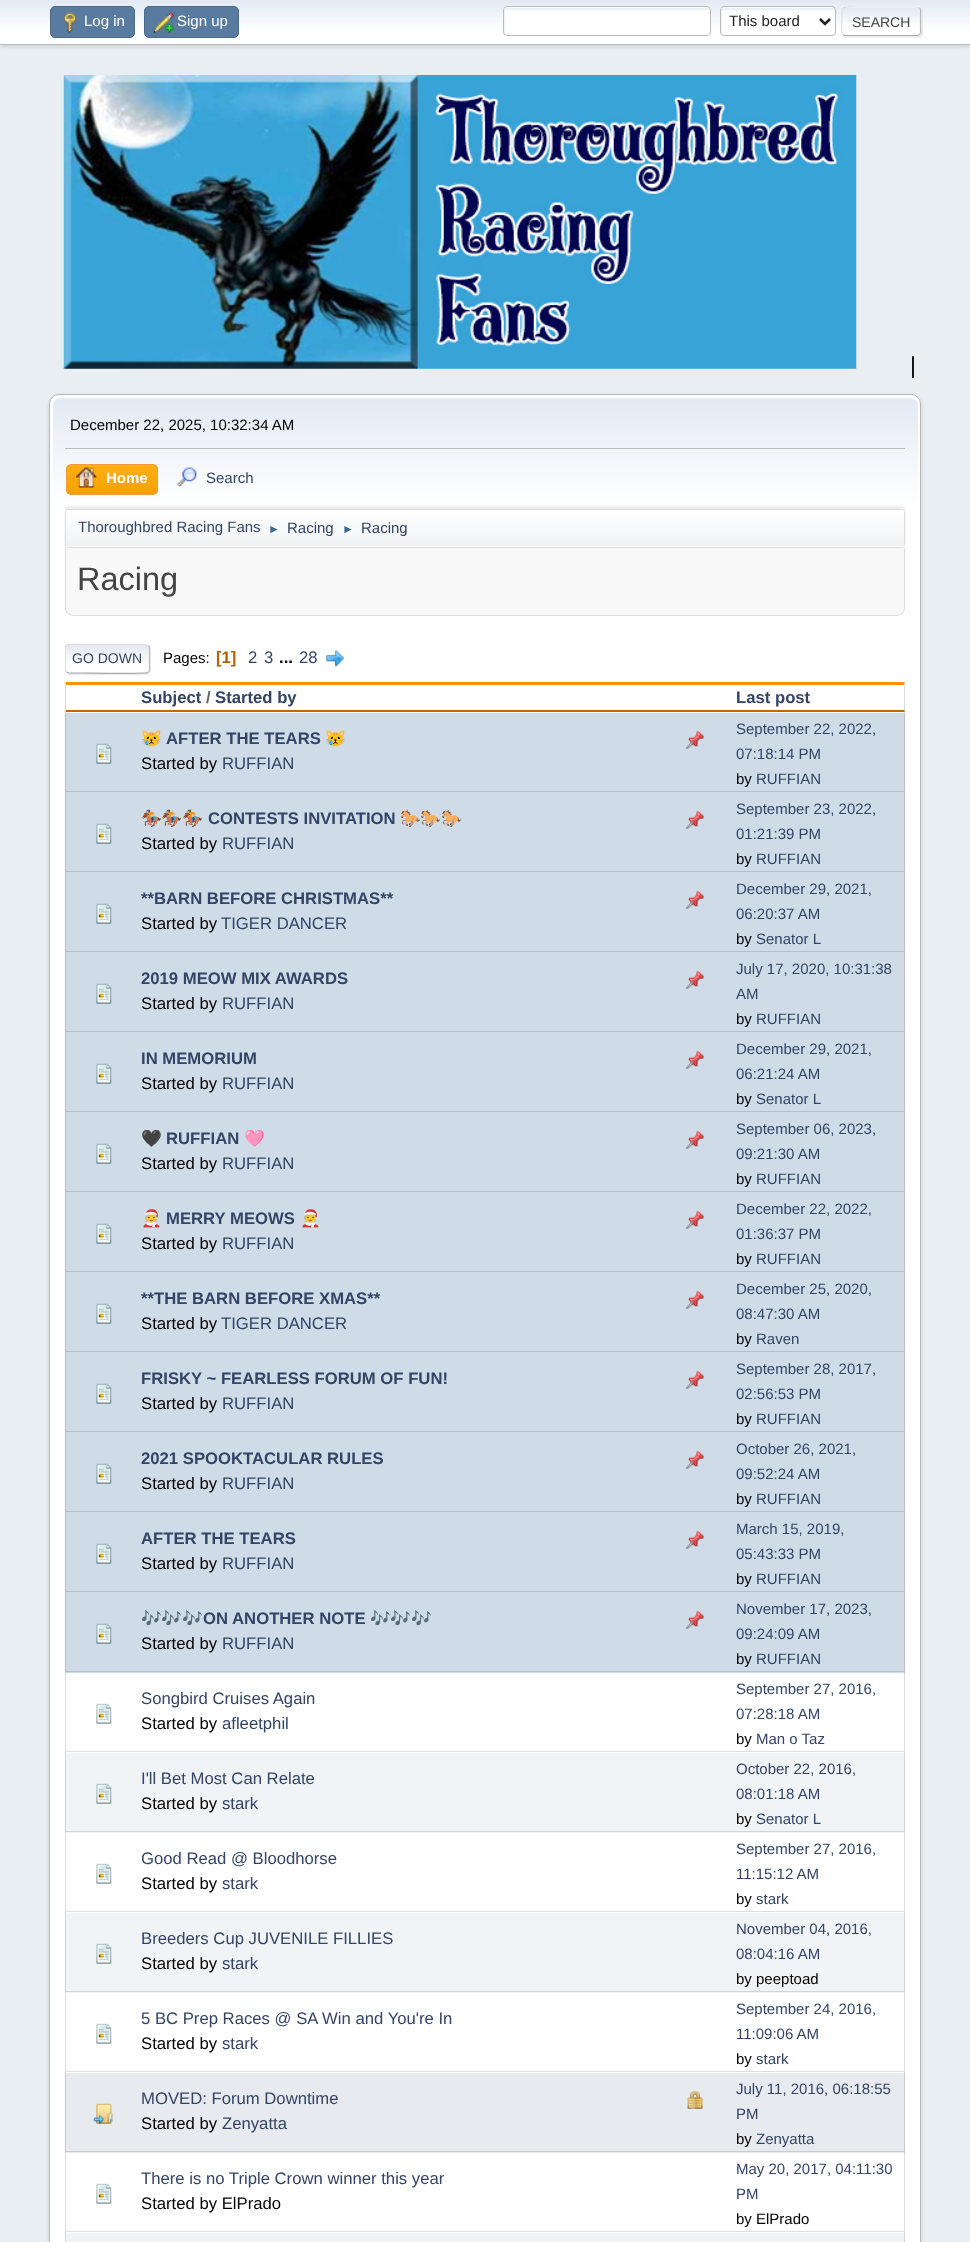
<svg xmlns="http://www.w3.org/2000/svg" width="970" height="2242">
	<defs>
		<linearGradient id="g1" gradientUnits="userSpaceOnUse" x1="485" y1="0" x2="485" y2="44"><stop offset="0" stop-color="#E2E9F3" /><stop offset="0.7" stop-color="#FFFFFF" /></linearGradient>
		<clipPath id="clip1"><rect x="841" y="6" width="80" height="30" rx="4" /></clipPath>
		<linearGradient id="g2" gradientUnits="userSpaceOnUse" x1="881" y1="-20" x2="881" y2="7.5"><stop offset="0" stop-color="#E2E9F3" /><stop offset="0.7" stop-color="#FFFFFF" /></linearGradient>
		<linearGradient id="g3" gradientUnits="userSpaceOnUse" x1="881" y1="7.5" x2="881" y2="35"><stop offset="0" stop-color="#E2E9F3" /><stop offset="0.7" stop-color="#FFFFFF" /></linearGradient>
		<linearGradient id="g4" gradientUnits="userSpaceOnUse" x1="485" y1="397" x2="485" y2="550"><stop offset="0" stop-color="#E2E9F3" /><stop offset="0.7" stop-color="#FFFFFF" /></linearGradient>
		<clipPath id="clip2"><rect x="66" y="464" width="92" height="31" rx="5" /></clipPath>
		<linearGradient id="g5" gradientUnits="userSpaceOnUse" x1="112" y1="465" x2="112" y2="494"><stop offset="0" stop-color="#FFAE14" /><stop offset="1" stop-color="#F5A100" /></linearGradient>
		<linearGradient id="g6" gradientUnits="userSpaceOnUse" x1="485" y1="510" x2="485" y2="546"><stop offset="0" stop-color="#FFFFFF" /><stop offset="0.95" stop-color="#F1F3F5" /></linearGradient>
		<clipPath id="clip3"><rect x="65" y="644" width="85" height="30" rx="4" /></clipPath>
		<linearGradient id="g7" gradientUnits="userSpaceOnUse" x1="108" y1="645" x2="108" y2="673"><stop offset="0" stop-color="#E2E9F3" /><stop offset="0.7" stop-color="#FFFFFF" /></linearGradient>
		<linearGradient id="g8" gradientUnits="userSpaceOnUse" x1="108" y1="673" x2="108" y2="700"><stop offset="0" stop-color="#E2E9F3" /><stop offset="0.7" stop-color="#FFFFFF" /></linearGradient>
		<clipPath id="clip4"><rect x="65" y="635" width="840" height="48" /></clipPath>
	</defs>
	<rect width="100%" height="100%" fill="#E9EEF2" />
	<rect x="0" y="1" width="970" height="45" fill="#000000" fill-opacity="0.16" filter="blur(2.5px)" />
	<rect x="0" y="0" width="970" height="44" fill="url(#g1)" />
	<rect x="0" y="44" width="970" height="1" fill="#BBBBBB" />
	<rect x="50.5" y="6.5" width="84" height="31" rx="4.5" fill="#597B9F" stroke="#4A6B8C" />
	<image x="63" y="12" width="14" height="21" href="assets/img1.png" />
	<text x="84" y="26" font-family="Liberation Sans" font-size="15" fill="#FFFFFF">Log in</text>
	<rect x="144.5" y="6.5" width="94" height="31" rx="4.5" fill="#597B9F" stroke="#4A6B8C" />
	<image x="153" y="12" width="21" height="21" href="assets/img2.png" />
	<text x="177" y="26" font-family="Liberation Sans" font-size="15" fill="#FFFFFF">Sign up</text>
	<rect x="503" y="6" width="208" height="30" rx="4" fill="#FFFFFF" />
	<path d="M508 10H710C710 9 709 8 708 8H506C505 8 504 9 504 10V32C504 33 504 34 505 35V12C505 11 506 10 508 10Z" fill="#ECF1F8" />
	<rect x="503.5" y="6.5" width="207" height="29" rx="3.5" fill="none" stroke="#BBBBBB" />
	<rect x="720" y="6" width="116" height="30" rx="4" fill="#FFFFFF" />
	<path d="M725 10H835C835 9 834 8 832 8H724C722 8 721 9 721 10V32C721 33 721 34 722 35V12C722 11 724 10 725 10Z" fill="#ECF1F8" />
	<rect x="720.5" y="6.5" width="115" height="29" rx="3.5" fill="none" stroke="#BBBBBB" />
	<path d="M820 19L825 24L830 19" fill="none" stroke="#222222" stroke-width="2.5" />
	<text x="729" y="26" font-family="Liberation Sans" font-size="15" fill="#222222">This board</text>
	<rect x="843" y="8" width="80" height="30" rx="4" fill="#DDDDDD" fill-opacity="0.57" filter="blur(0.5px)" />
	<g clip-path="url(#clip1)">
		<rect x="841" y="6" width="80" height="2" fill="url(#g2)" />
		<rect x="841" y="8" width="80" height="27" fill="url(#g3)" />
	</g>
	<path d="M919.5 8C920.5 8.5 920.5 9 920.5 10V32.5C920.5 33.5 920.5 34 919.5 34.5" fill="none" stroke="#BBBBBB" stroke-width="1.2" />
	<path d="M919.5 34.5L918 35.5H844.5L843 34.5" fill="none" stroke="#AAAAAA" stroke-width="1.2" />
	<path d="M843 34.5C840.5 32.5 842 24 842 21C842 4.5 839.5 7 857 7H917.5L919.5 8" fill="none" stroke="#DDDDDD" stroke-width="1.2" />
	<text x="852" y="27" font-family="Liberation Sans" font-size="14" fill="#444444">SEARCH</text>
	<image x="63" y="75" width="794" height="294" href="assets/img3.png" />
	<text x="910" y="373" font-family="Liberation Sans" font-size="23" fill="#000000">|</text>
	<rect x="49" y="396" width="872" height="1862" rx="10" fill="#000000" fill-opacity="0.14" filter="blur(2px)" />
	<rect x="49.5" y="394.5" width="871" height="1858" rx="9.5" fill="#FFFFFF" stroke="#B8B8B8" />
	<path d="M61 398H910C914.5 398 918 401.5 918 406V550H53V406C53 401.5 56.5 398 61 398Z" fill="url(#g4)" />
	<rect x="65" y="448" width="840" height="1" fill="#BBBBBB" />
	<text x="70" y="430" font-family="Liberation Sans" font-size="15" fill="#000000">December 22, 2025, 10:32:34 AM</text>
	<g clip-path="url(#clip2)">
		<rect x="66" y="465" width="92" height="29" fill="url(#g5)" />
	</g>
	<rect x="66.5" y="464.5" width="91" height="30" rx="4.5" fill="none" stroke="#F49A3A" />
	<image x="76" y="467" width="21" height="21" href="assets/img4.png" />
	<text x="106" y="483" font-family="Liberation Sans" font-size="15" font-weight="700" fill="#FFFFFF">Home</text>
	<image x="177" y="467" width="20" height="20" href="assets/img5.png" />
	<text x="206" y="483" font-family="Liberation Sans" font-size="15" fill="#334466">Search</text>
	<rect x="65" y="506" width="840" height="39" rx="2.5" fill="#000000" fill-opacity="0.08" filter="blur(1px)" />
	<rect x="65" y="509" width="840" height="39" rx="2.5" fill="#FFFFFF" />
	<rect x="65" y="510" width="840" height="36" fill="url(#g6)" />
	<rect x="65.5" y="509.5" width="839" height="38" rx="2" fill="none" stroke="#DDDDDD" />
	<text x="78" y="532" font-family="Liberation Sans" font-size="15" fill="#334466">Thoroughbred Racing Fans</text>
	<text x="268" y="533" font-family="Liberation Sans" font-size="12" fill="#3F6B8C">►</text>
	<text x="287" y="533" font-family="Liberation Sans" font-size="15" fill="#334466">Racing</text>
	<text x="342" y="533" font-family="Liberation Sans" font-size="12" fill="#3F6B8C">►</text>
	<text x="361" y="533" font-family="Liberation Sans" font-size="15" fill="#334466">Racing</text>
	<path d="M65 548H905V607C905 612 901 616 896 616H74C69 616 65 612 65 607Z" fill="#F8F8F8" />
	<path d="M65 548H905V608C905 612 901 616 896 616H74C69 616 65 612 65 608ZM66 548H904V608C904 612 900 615 896 615H74C70 615 66 612 66 608Z" fill="#DDDDDD" fill-rule="evenodd" />
	<text x="77" y="590" font-family="Liberation Sans" font-size="32.5" fill="#444444">Racing</text>
	<rect x="66" y="645" width="85" height="30" rx="4" fill="#DDDDDD" fill-opacity="0.57" filter="blur(0.5px)" />
	<rect x="65" y="644" width="85" height="30" rx="4" fill="#FFFFFF" />
	<g clip-path="url(#clip3)">
		<rect x="65" y="645" width="85" height="28" fill="url(#g7)" />
		<rect x="65" y="673" width="85" height="1" fill="url(#g8)" />
	</g>
	<path d="M148.5 645.5C149 646 149.5 646.5 149.5 647.5V670C149.5 671 149 671.5 148.5 672" fill="none" stroke="#BBBBBB" stroke-width="1.2" />
	<path d="M148.5 672L148 672.5C146 674 89 673 81.5 673H69L66.5 672" fill="none" stroke="#AAAAAA" stroke-width="1.2" />
	<g clip-path="url(#clip4)">
		<path d="M66.5 672C64.5 670 65.5 665 65.5 662.5C65.5 642 61.5 644.5 81.5 644.5H146L148.5 645.5" fill="none" stroke="#DDDDDD" stroke-width="1.2" />
	</g>
	<text x="72" y="663" font-family="Liberation Sans" font-size="14" fill="#334466">GO DOWN</text>
	<text x="163" y="663" font-family="Liberation Sans" font-size="15" fill="#000000">Pages:</text>
	<text x="216" y="663" font-family="Liberation Sans" font-size="16.7" font-weight="700" fill="#B46100">[1]</text>
	<g font-family="Liberation Sans" font-size="16.7" fill="#334466">
		<text x="248" y="663">2</text>
		<text x="264" y="663">3</text>
	</g>
	<text x="279" y="663" font-family="Liberation Sans" font-size="16.7" font-weight="700" fill="#000000">...</text>
	<text x="299" y="663" font-family="Liberation Sans" font-size="16.7" fill="#334466">28</text>
	<image x="326" y="649" width="18" height="18" href="assets/img6.png" />
	<path d="M65 682H905L904 685H66Z" fill="#FF9400" />
	<path d="M905 682.5V712.5L904 710V685Z" fill="#DDDDDD" />
	<path d="M905 712H65L66 710H904Z" fill="#BF6900" />
	<path d="M65 712.5V682.5L66 685V710Z" fill="#DDDDDD" />
	<text x="141" y="703" font-family="Liberation Sans" font-size="16.7" font-weight="700" fill="#334466">Subject</text>
	<text x="206" y="703" font-family="Liberation Sans" font-size="16.7" font-weight="700" fill="#666666">/</text>
	<g font-family="Liberation Sans" font-size="16.7" font-weight="700" fill="#334466">
		<text x="215" y="703">Started by</text>
		<text x="736" y="703">Last post</text>
	</g>
	<rect x="65" y="713" width="840" height="960" fill="#CFDCE8" />
	<path d="M905 712V792L904 791V712Z" fill="#000000" fill-opacity="0.13" />
	<path d="M905 792H65L66 791H904Z" fill="#000000" fill-opacity="0.13" />
	<path d="M65 792V712H66V791Z" fill="#000000" fill-opacity="0.13" />
	<image x="96" y="743" width="16" height="21" href="assets/img7.png" />
	<text x="141" y="744" font-family="Noto Color Emoji" font-size="16.7" font-weight="700" fill="#334466">😿</text>
	<text x="166" y="744" font-family="Liberation Sans" font-size="16.7" font-weight="700" fill="#334466">AFTER THE TEARS</text>
	<text x="325" y="744" font-family="Noto Color Emoji" font-size="16.7" font-weight="700" fill="#334466">😿</text>
	<image x="686" y="731" width="18" height="18" href="assets/img8.png" />
	<text x="141" y="769" font-family="Liberation Sans" font-size="16.7" fill="#000000">Started by</text>
	<text x="222" y="769" font-family="Liberation Sans" font-size="16.7" fill="#334466">RUFFIAN</text>
	<g font-family="Liberation Sans" font-size="15" fill="#334466">
		<text x="736" y="734">September 22, 2022,</text>
		<text x="736" y="759">07:18:14 PM</text>
	</g>
	<text x="736" y="784" font-family="Liberation Sans" font-size="15" fill="#000000">by</text>
	<text x="756" y="784" font-family="Liberation Sans" font-size="15" fill="#334466">RUFFIAN</text>
	<path d="M905 792V872L904 871V792Z" fill="#B4BFCA" />
	<path d="M905 872H65L66 871H904Z" fill="#000000" fill-opacity="0.13" />
	<path d="M65 872V792H66V871Z" fill="#000000" fill-opacity="0.13" />
	<image x="96" y="823" width="16" height="21" href="assets/img7.png" />
	<text x="141" y="824" font-family="Noto Color Emoji" font-size="16.7" font-weight="700" fill="#334466">🏇🏇🏇</text>
	<text x="208" y="824" font-family="Liberation Sans" font-size="16.7" font-weight="700" fill="#334466">CONTESTS INVITATION</text>
	<text x="400" y="824" font-family="Noto Color Emoji" font-size="16.7" font-weight="700" fill="#334466">🐎🐎🐎</text>
	<image x="686" y="811" width="18" height="18" href="assets/img8.png" />
	<text x="141" y="849" font-family="Liberation Sans" font-size="16.7" fill="#000000">Started by</text>
	<text x="222" y="849" font-family="Liberation Sans" font-size="16.7" fill="#334466">RUFFIAN</text>
	<g font-family="Liberation Sans" font-size="15" fill="#334466">
		<text x="736" y="814">September 23, 2022,</text>
		<text x="736" y="839">01:21:39 PM</text>
	</g>
	<text x="736" y="864" font-family="Liberation Sans" font-size="15" fill="#000000">by</text>
	<text x="756" y="864" font-family="Liberation Sans" font-size="15" fill="#334466">RUFFIAN</text>
	<path d="M905 872V952L904 951V872Z" fill="#B4BFCA" />
	<path d="M905 952H65L66 951H904Z" fill="#000000" fill-opacity="0.13" />
	<path d="M65 952V872H66V951Z" fill="#000000" fill-opacity="0.13" />
	<image x="96" y="903" width="16" height="21" href="assets/img7.png" />
	<text x="141" y="904" font-family="Liberation Sans" font-size="16.7" font-weight="700" fill="#334466">**BARN BEFORE CHRISTMAS**</text>
	<image x="686" y="891" width="18" height="18" href="assets/img8.png" />
	<text x="141" y="929" font-family="Liberation Sans" font-size="16.7" fill="#000000">Started by</text>
	<text x="221" y="929" font-family="Liberation Sans" font-size="16.7" fill="#334466">TIGER DANCER</text>
	<g font-family="Liberation Sans" font-size="15" fill="#334466">
		<text x="736" y="894">December 29, 2021,</text>
		<text x="736" y="919">06:20:37 AM</text>
	</g>
	<text x="736" y="944" font-family="Liberation Sans" font-size="15" fill="#000000">by</text>
	<text x="756" y="944" font-family="Liberation Sans" font-size="15" fill="#334466">Senator L</text>
	<path d="M905 952V1032L904 1031V952Z" fill="#B4BFCA" />
	<path d="M905 1032H65L66 1031H904Z" fill="#000000" fill-opacity="0.13" />
	<path d="M65 1032V952H66V1031Z" fill="#000000" fill-opacity="0.13" />
	<image x="96" y="983" width="16" height="21" href="assets/img7.png" />
	<text x="141" y="984" font-family="Liberation Sans" font-size="16.7" font-weight="700" fill="#334466">2019 MEOW MIX AWARDS</text>
	<image x="686" y="971" width="18" height="18" href="assets/img8.png" />
	<text x="141" y="1009" font-family="Liberation Sans" font-size="16.7" fill="#000000">Started by</text>
	<text x="222" y="1009" font-family="Liberation Sans" font-size="16.7" fill="#334466">RUFFIAN</text>
	<g font-family="Liberation Sans" font-size="15" fill="#334466">
		<text x="736" y="974">July 17, 2020, 10:31:38</text>
		<text x="736" y="999">AM</text>
	</g>
	<text x="736" y="1024" font-family="Liberation Sans" font-size="15" fill="#000000">by</text>
	<text x="756" y="1024" font-family="Liberation Sans" font-size="15" fill="#334466">RUFFIAN</text>
	<path d="M905 1032V1112L904 1111V1032Z" fill="#B4BFCA" />
	<path d="M905 1112H65L66 1111H904Z" fill="#000000" fill-opacity="0.13" />
	<path d="M65 1112V1032H66V1111Z" fill="#000000" fill-opacity="0.13" />
	<image x="96" y="1063" width="16" height="21" href="assets/img7.png" />
	<text x="141" y="1064" font-family="Liberation Sans" font-size="16.7" font-weight="700" fill="#334466">IN MEMORIUM</text>
	<image x="686" y="1051" width="18" height="18" href="assets/img8.png" />
	<text x="141" y="1089" font-family="Liberation Sans" font-size="16.7" fill="#000000">Started by</text>
	<text x="222" y="1089" font-family="Liberation Sans" font-size="16.7" fill="#334466">RUFFIAN</text>
	<g font-family="Liberation Sans" font-size="15" fill="#334466">
		<text x="736" y="1054">December 29, 2021,</text>
		<text x="736" y="1079">06:21:24 AM</text>
	</g>
	<text x="736" y="1104" font-family="Liberation Sans" font-size="15" fill="#000000">by</text>
	<text x="756" y="1104" font-family="Liberation Sans" font-size="15" fill="#334466">Senator L</text>
	<path d="M905 1112V1192L904 1191V1112Z" fill="#B4BFCA" />
	<path d="M905 1192H65L66 1191H904Z" fill="#000000" fill-opacity="0.13" />
	<path d="M65 1192V1112H66V1191Z" fill="#000000" fill-opacity="0.13" />
	<image x="96" y="1143" width="16" height="21" href="assets/img7.png" />
	<text x="141" y="1144" font-family="Noto Color Emoji" font-size="16.7" font-weight="700" fill="#334466">🖤</text>
	<text x="166" y="1144" font-family="Liberation Sans" font-size="16.7" font-weight="700" fill="#334466">RUFFIAN</text>
	<text x="244" y="1144" font-family="Noto Color Emoji" font-size="16.7" font-weight="700" fill="#334466">🩷</text>
	<image x="686" y="1131" width="18" height="18" href="assets/img8.png" />
	<text x="141" y="1169" font-family="Liberation Sans" font-size="16.7" fill="#000000">Started by</text>
	<text x="222" y="1169" font-family="Liberation Sans" font-size="16.7" fill="#334466">RUFFIAN</text>
	<g font-family="Liberation Sans" font-size="15" fill="#334466">
		<text x="736" y="1134">September 06, 2023,</text>
		<text x="736" y="1159">09:21:30 AM</text>
	</g>
	<text x="736" y="1184" font-family="Liberation Sans" font-size="15" fill="#000000">by</text>
	<text x="756" y="1184" font-family="Liberation Sans" font-size="15" fill="#334466">RUFFIAN</text>
	<path d="M905 1192V1272L904 1271V1192Z" fill="#B4BFCA" />
	<path d="M905 1272H65L66 1271H904Z" fill="#000000" fill-opacity="0.13" />
	<path d="M65 1272V1192H66V1271Z" fill="#000000" fill-opacity="0.13" />
	<image x="96" y="1223" width="16" height="21" href="assets/img7.png" />
	<text x="141" y="1224" font-family="Noto Color Emoji" font-size="16.7" font-weight="700" fill="#334466">🧑‍🎄</text>
	<text x="166" y="1224" font-family="Liberation Sans" font-size="16.7" font-weight="700" fill="#334466">MERRY MEOWS</text>
	<text x="300" y="1224" font-family="Noto Color Emoji" font-size="16.7" font-weight="700" fill="#334466">🧑‍🎄</text>
	<image x="686" y="1211" width="18" height="18" href="assets/img8.png" />
	<text x="141" y="1249" font-family="Liberation Sans" font-size="16.7" fill="#000000">Started by</text>
	<text x="222" y="1249" font-family="Liberation Sans" font-size="16.7" fill="#334466">RUFFIAN</text>
	<g font-family="Liberation Sans" font-size="15" fill="#334466">
		<text x="736" y="1214">December 22, 2022,</text>
		<text x="736" y="1239">01:36:37 PM</text>
	</g>
	<text x="736" y="1264" font-family="Liberation Sans" font-size="15" fill="#000000">by</text>
	<text x="756" y="1264" font-family="Liberation Sans" font-size="15" fill="#334466">RUFFIAN</text>
	<path d="M905 1272V1352L904 1351V1272Z" fill="#B4BFCA" />
	<path d="M905 1352H65L66 1351H904Z" fill="#000000" fill-opacity="0.13" />
	<path d="M65 1352V1272H66V1351Z" fill="#000000" fill-opacity="0.13" />
	<image x="96" y="1303" width="16" height="21" href="assets/img7.png" />
	<text x="141" y="1304" font-family="Liberation Sans" font-size="16.7" font-weight="700" fill="#334466">**THE BARN BEFORE XMAS**</text>
	<image x="686" y="1291" width="18" height="18" href="assets/img8.png" />
	<text x="141" y="1329" font-family="Liberation Sans" font-size="16.7" fill="#000000">Started by</text>
	<text x="221" y="1329" font-family="Liberation Sans" font-size="16.7" fill="#334466">TIGER DANCER</text>
	<g font-family="Liberation Sans" font-size="15" fill="#334466">
		<text x="736" y="1294">December 25, 2020,</text>
		<text x="736" y="1319">08:47:30 AM</text>
	</g>
	<text x="736" y="1344" font-family="Liberation Sans" font-size="15" fill="#000000">by</text>
	<text x="756" y="1344" font-family="Liberation Sans" font-size="15" fill="#334466">Raven</text>
	<path d="M905 1352V1432L904 1431V1352Z" fill="#B4BFCA" />
	<path d="M905 1432H65L66 1431H904Z" fill="#000000" fill-opacity="0.13" />
	<path d="M65 1432V1352H66V1431Z" fill="#000000" fill-opacity="0.13" />
	<image x="96" y="1383" width="16" height="21" href="assets/img7.png" />
	<text x="141" y="1384" font-family="Liberation Sans" font-size="16.7" font-weight="700" fill="#334466">FRISKY ~ FEARLESS FORUM OF FUN!</text>
	<image x="686" y="1371" width="18" height="18" href="assets/img8.png" />
	<text x="141" y="1409" font-family="Liberation Sans" font-size="16.7" fill="#000000">Started by</text>
	<text x="222" y="1409" font-family="Liberation Sans" font-size="16.7" fill="#334466">RUFFIAN</text>
	<g font-family="Liberation Sans" font-size="15" fill="#334466">
		<text x="736" y="1374">September 28, 2017,</text>
		<text x="736" y="1399">02:56:53 PM</text>
	</g>
	<text x="736" y="1424" font-family="Liberation Sans" font-size="15" fill="#000000">by</text>
	<text x="756" y="1424" font-family="Liberation Sans" font-size="15" fill="#334466">RUFFIAN</text>
	<path d="M905 1432V1512L904 1511V1432Z" fill="#B4BFCA" />
	<path d="M905 1512H65L66 1511H904Z" fill="#000000" fill-opacity="0.13" />
	<path d="M65 1512V1432H66V1511Z" fill="#000000" fill-opacity="0.13" />
	<image x="96" y="1463" width="16" height="21" href="assets/img7.png" />
	<text x="141" y="1464" font-family="Liberation Sans" font-size="16.7" font-weight="700" fill="#334466">2021 SPOOKTACULAR RULES</text>
	<image x="686" y="1451" width="18" height="18" href="assets/img8.png" />
	<text x="141" y="1489" font-family="Liberation Sans" font-size="16.7" fill="#000000">Started by</text>
	<text x="222" y="1489" font-family="Liberation Sans" font-size="16.7" fill="#334466">RUFFIAN</text>
	<g font-family="Liberation Sans" font-size="15" fill="#334466">
		<text x="736" y="1454">October 26, 2021,</text>
		<text x="736" y="1479">09:52:24 AM</text>
	</g>
	<text x="736" y="1504" font-family="Liberation Sans" font-size="15" fill="#000000">by</text>
	<text x="756" y="1504" font-family="Liberation Sans" font-size="15" fill="#334466">RUFFIAN</text>
	<path d="M905 1512V1592L904 1591V1512Z" fill="#B4BFCA" />
	<path d="M905 1592H65L66 1591H904Z" fill="#000000" fill-opacity="0.13" />
	<path d="M65 1592V1512H66V1591Z" fill="#000000" fill-opacity="0.13" />
	<image x="96" y="1543" width="16" height="21" href="assets/img7.png" />
	<text x="141" y="1544" font-family="Liberation Sans" font-size="16.7" font-weight="700" fill="#334466">AFTER THE TEARS</text>
	<image x="686" y="1531" width="18" height="18" href="assets/img8.png" />
	<text x="141" y="1569" font-family="Liberation Sans" font-size="16.7" fill="#000000">Started by</text>
	<text x="222" y="1569" font-family="Liberation Sans" font-size="16.7" fill="#334466">RUFFIAN</text>
	<g font-family="Liberation Sans" font-size="15" fill="#334466">
		<text x="736" y="1534">March 15, 2019,</text>
		<text x="736" y="1559">05:43:33 PM</text>
	</g>
	<text x="736" y="1584" font-family="Liberation Sans" font-size="15" fill="#000000">by</text>
	<text x="756" y="1584" font-family="Liberation Sans" font-size="15" fill="#334466">RUFFIAN</text>
	<path d="M905 1592V1672L904 1671V1592Z" fill="#B4BFCA" />
	<path d="M905 1672H65L66 1671H904Z" fill="#000000" fill-opacity="0.13" />
	<path d="M65 1672V1592H66V1671Z" fill="#000000" fill-opacity="0.13" />
	<image x="96" y="1623" width="16" height="21" href="assets/img7.png" />
	<text x="141" y="1624" font-family="Noto Color Emoji" font-size="16.7" font-weight="700" fill="#334466">🎶🎶🎶</text>
	<text x="203" y="1624" font-family="Liberation Sans" font-size="16.7" font-weight="700" fill="#334466">ON ANOTHER NOTE</text>
	<text x="370" y="1624" font-family="Noto Color Emoji" font-size="16.7" font-weight="700" fill="#334466">🎶🎶🎶</text>
	<image x="686" y="1611" width="18" height="18" href="assets/img8.png" />
	<text x="141" y="1649" font-family="Liberation Sans" font-size="16.7" fill="#000000">Started by</text>
	<text x="222" y="1649" font-family="Liberation Sans" font-size="16.7" fill="#334466">RUFFIAN</text>
	<g font-family="Liberation Sans" font-size="15" fill="#334466">
		<text x="736" y="1614">November 17, 2023,</text>
		<text x="736" y="1639">09:24:09 AM</text>
	</g>
	<text x="736" y="1664" font-family="Liberation Sans" font-size="15" fill="#000000">by</text>
	<text x="756" y="1664" font-family="Liberation Sans" font-size="15" fill="#334466">RUFFIAN</text>
	<path d="M905 1672V1752L904 1751V1672Z" fill="#000000" fill-opacity="0.13" />
	<path d="M905 1752H65L66 1751H904Z" fill="#000000" fill-opacity="0.13" />
	<path d="M65 1752V1672H66V1751Z" fill="#000000" fill-opacity="0.13" />
	<image x="96" y="1703" width="16" height="21" href="assets/img9.png" />
	<text x="141" y="1704" font-family="Liberation Sans" font-size="16.7" fill="#334466">Songbird Cruises Again</text>
	<text x="141" y="1729" font-family="Liberation Sans" font-size="16.7" fill="#000000">Started by</text>
	<text x="222" y="1729" font-family="Liberation Sans" font-size="16.7" fill="#334466">afleetphil</text>
	<g font-family="Liberation Sans" font-size="15" fill="#334466">
		<text x="736" y="1694">September 27, 2016,</text>
		<text x="736" y="1719">07:28:18 AM</text>
	</g>
	<text x="736" y="1744" font-family="Liberation Sans" font-size="15" fill="#000000">by</text>
	<text x="756" y="1744" font-family="Liberation Sans" font-size="15" fill="#334466">Man o Taz</text>
	<rect x="65" y="1753" width="840" height="80" fill="#F0F4F7" />
	<path d="M905 1752V1832L904 1831V1752Z" fill="#000000" fill-opacity="0.13" />
	<path d="M905 1832H65L66 1831H904Z" fill="#000000" fill-opacity="0.13" />
	<path d="M65 1832V1752H66V1831Z" fill="#000000" fill-opacity="0.13" />
	<image x="96" y="1783" width="16" height="21" href="assets/img10.png" />
	<text x="141" y="1784" font-family="Liberation Sans" font-size="16.7" fill="#334466">I'll Bet Most Can Relate</text>
	<text x="141" y="1809" font-family="Liberation Sans" font-size="16.7" fill="#000000">Started by</text>
	<text x="222" y="1809" font-family="Liberation Sans" font-size="16.7" fill="#334466">stark</text>
	<g font-family="Liberation Sans" font-size="15" fill="#334466">
		<text x="736" y="1774">October 22, 2016,</text>
		<text x="736" y="1799">08:01:18 AM</text>
	</g>
	<text x="736" y="1824" font-family="Liberation Sans" font-size="15" fill="#000000">by</text>
	<text x="756" y="1824" font-family="Liberation Sans" font-size="15" fill="#334466">Senator L</text>
	<path d="M905 1832V1912L904 1911V1832Z" fill="#000000" fill-opacity="0.13" />
	<path d="M905 1912H65L66 1911H904Z" fill="#000000" fill-opacity="0.13" />
	<path d="M65 1912V1832H66V1911Z" fill="#000000" fill-opacity="0.13" />
	<image x="96" y="1863" width="16" height="21" href="assets/img9.png" />
	<text x="141" y="1864" font-family="Liberation Sans" font-size="16.7" fill="#334466">Good Read @ Bloodhorse</text>
	<text x="141" y="1889" font-family="Liberation Sans" font-size="16.7" fill="#000000">Started by</text>
	<text x="222" y="1889" font-family="Liberation Sans" font-size="16.7" fill="#334466">stark</text>
	<g font-family="Liberation Sans" font-size="15" fill="#334466">
		<text x="736" y="1854">September 27, 2016,</text>
		<text x="736" y="1879">11:15:12 AM</text>
	</g>
	<text x="736" y="1904" font-family="Liberation Sans" font-size="15" fill="#000000">by</text>
	<text x="756" y="1904" font-family="Liberation Sans" font-size="15" fill="#334466">stark</text>
	<rect x="65" y="1913" width="840" height="80" fill="#F0F4F7" />
	<path d="M905 1912V1992L904 1991V1912Z" fill="#000000" fill-opacity="0.13" />
	<path d="M905 1992H65L66 1991H904Z" fill="#000000" fill-opacity="0.13" />
	<path d="M65 1992V1912H66V1991Z" fill="#000000" fill-opacity="0.13" />
	<image x="96" y="1943" width="16" height="21" href="assets/img11.png" />
	<text x="141" y="1944" font-family="Liberation Sans" font-size="16.7" fill="#334466">Breeders Cup JUVENILE FILLIES</text>
	<text x="141" y="1969" font-family="Liberation Sans" font-size="16.7" fill="#000000">Started by</text>
	<text x="222" y="1969" font-family="Liberation Sans" font-size="16.7" fill="#334466">stark</text>
	<g font-family="Liberation Sans" font-size="15" fill="#334466">
		<text x="736" y="1934">November 04, 2016,</text>
		<text x="736" y="1959">08:04:16 AM</text>
	</g>
	<text x="736" y="1984" font-family="Liberation Sans" font-size="15" fill="#000000">by peeptoad</text>
	<path d="M905 1992V2072L904 2071V1992Z" fill="#000000" fill-opacity="0.13" />
	<path d="M905 2072H65L66 2071H904Z" fill="#000000" fill-opacity="0.13" />
	<path d="M65 2072V1992H66V2071Z" fill="#000000" fill-opacity="0.13" />
	<image x="96" y="2023" width="16" height="21" href="assets/img9.png" />
	<text x="141" y="2024" font-family="Liberation Sans" font-size="16.7" fill="#334466">5 BC Prep Races @ SA Win and You're In</text>
	<text x="141" y="2049" font-family="Liberation Sans" font-size="16.7" fill="#000000">Started by</text>
	<text x="222" y="2049" font-family="Liberation Sans" font-size="16.7" fill="#334466">stark</text>
	<g font-family="Liberation Sans" font-size="15" fill="#334466">
		<text x="736" y="2014">September 24, 2016,</text>
		<text x="736" y="2039">11:09:06 AM</text>
	</g>
	<text x="736" y="2064" font-family="Liberation Sans" font-size="15" fill="#000000">by</text>
	<text x="756" y="2064" font-family="Liberation Sans" font-size="15" fill="#334466">stark</text>
	<rect x="65" y="2073" width="840" height="80" fill="#E7EAEF" />
	<path d="M905 2072V2152L904 2151V2072Z" fill="#000000" fill-opacity="0.13" />
	<path d="M905 2152H65L66 2151H904Z" fill="#000000" fill-opacity="0.13" />
	<path d="M65 2152V2072H66V2151Z" fill="#000000" fill-opacity="0.13" />
	<image x="93" y="2103" width="20" height="21" href="assets/img12.png" />
	<text x="141" y="2104" font-family="Liberation Sans" font-size="16.7" fill="#334466">MOVED: Forum Downtime</text>
	<image x="687" y="2091" width="16" height="18" href="assets/img13.png" />
	<text x="141" y="2129" font-family="Liberation Sans" font-size="16.7" fill="#000000">Started by</text>
	<text x="222" y="2129" font-family="Liberation Sans" font-size="16.7" fill="#334466">Zenyatta</text>
	<g font-family="Liberation Sans" font-size="15" fill="#334466">
		<text x="736" y="2094">July 11, 2016, 06:18:55</text>
		<text x="736" y="2119">PM</text>
	</g>
	<text x="736" y="2144" font-family="Liberation Sans" font-size="15" fill="#000000">by</text>
	<text x="756" y="2144" font-family="Liberation Sans" font-size="15" fill="#334466">Zenyatta</text>
	<path d="M905 2152V2232L904 2231V2152Z" fill="#000000" fill-opacity="0.13" />
	<path d="M905 2232H65L66 2231H904Z" fill="#000000" fill-opacity="0.13" />
	<path d="M65 2232V2152H66V2231Z" fill="#000000" fill-opacity="0.13" />
	<image x="96" y="2183" width="16" height="21" href="assets/img9.png" />
	<text x="141" y="2184" font-family="Liberation Sans" font-size="16.7" fill="#334466">There is no Triple Crown winner this year</text>
	<text x="141" y="2209" font-family="Liberation Sans" font-size="16.7" fill="#000000">Started by ElPrado</text>
	<g font-family="Liberation Sans" font-size="15" fill="#334466">
		<text x="736" y="2174">May 20, 2017, 04:11:30</text>
		<text x="736" y="2199">PM</text>
	</g>
	<text x="736" y="2224" font-family="Liberation Sans" font-size="15" fill="#000000">by ElPrado</text>
	<rect x="65" y="2233" width="840" height="9" fill="#F0F4F7" />
	<path d="M905 2232V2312L904 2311V2232Z" fill="#000000" fill-opacity="0.13" />
	<path d="M65 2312V2232H66V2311Z" fill="#000000" fill-opacity="0.13" />
</svg>
